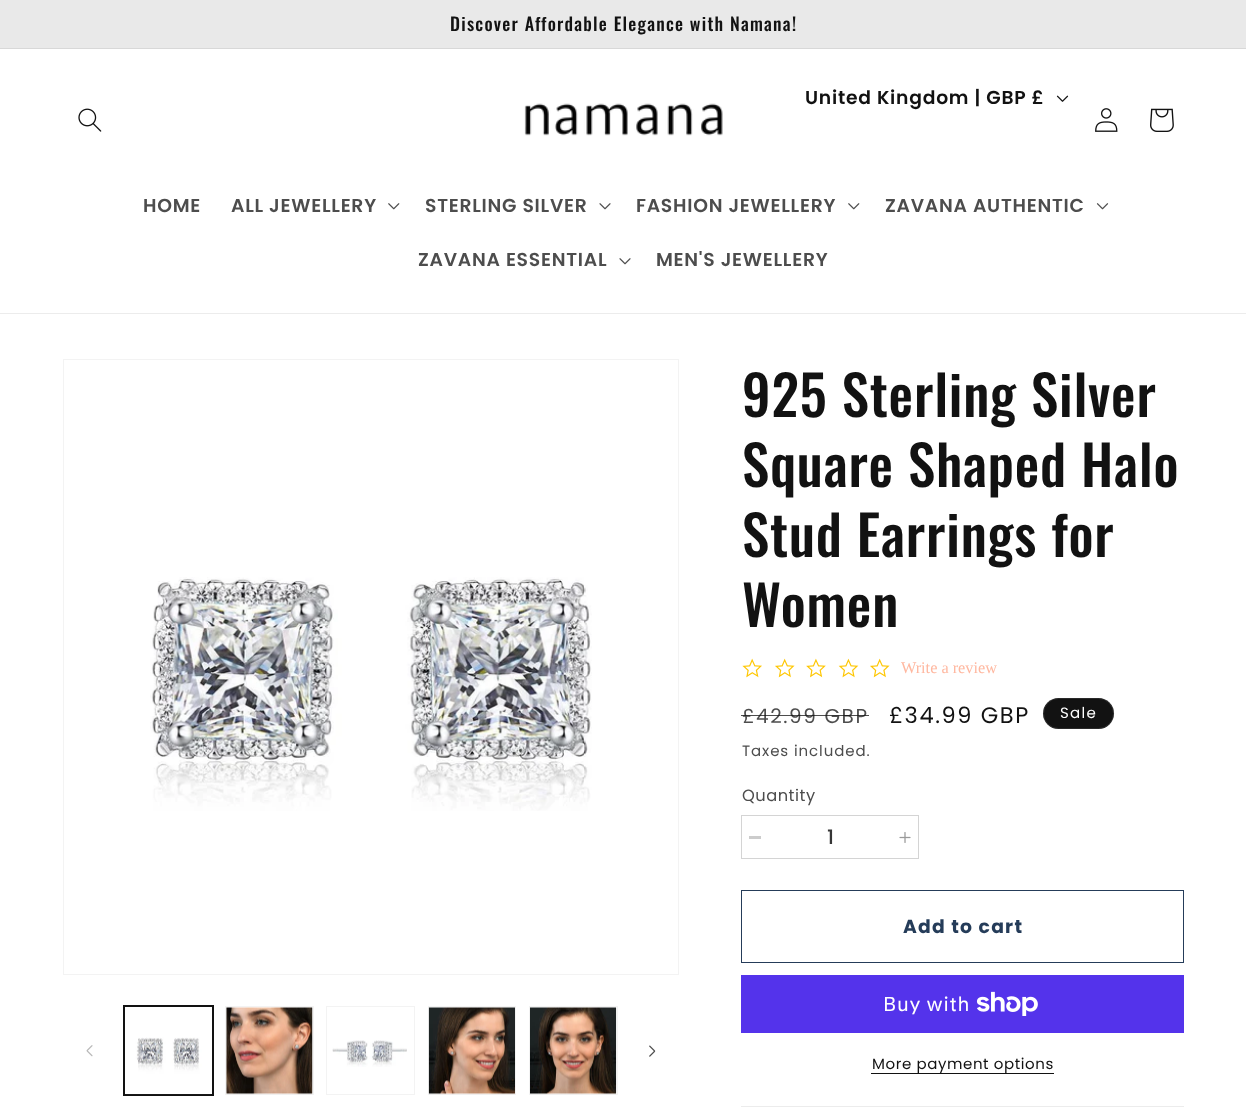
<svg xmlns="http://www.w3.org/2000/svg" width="1246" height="1115">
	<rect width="100%" height="100%" fill="#FFFFFF" />
	<rect x="0" y="0" width="1246" height="48" fill="#E9E9E9" />
	<rect x="0" y="48" width="1246" height="1" fill="#D8D8D8" />
	<text x="450" y="31" font-family="Oswald" font-size="17.9" font-weight="500" letter-spacing="1.25" fill="#121212">Discover Affordable Elegance with Namana!</text>
	<rect x="0" y="313" width="1246" height="1" fill="#ECECEC" />
	<text x="805" y="104" font-family="Poppins" font-size="18.75" font-weight="600" letter-spacing="0.75" fill="#121212">United Kingdom | GBP £</text>
	<image x="1056" y="95" width="13" height="7" href="assets/img1.png" />
	<image x="1095" y="108" width="23" height="24" href="assets/img2.png" />
	<image x="1150" y="108" width="24" height="24" href="assets/img3.png" />
	<image x="78" y="108" width="24" height="24" href="assets/img4.png" />
	<image x="524" y="103" width="199" height="33" href="assets/img5.png" />
	<g font-family="Poppins" font-size="18.75" font-weight="600" letter-spacing="0.75" fill="#4D4D4D">
		<text x="143" y="212">HOME</text>
		<text x="231" y="212">ALL JEWELLERY</text>
	</g>
	<image x="388" y="203" width="12" height="7" href="assets/img6.png" />
	<text x="425" y="212" font-family="Poppins" font-size="18.75" font-weight="600" letter-spacing="0.75" fill="#4D4D4D">STERLING SILVER</text>
	<image x="599" y="203" width="12" height="7" href="assets/img7.png" />
	<text x="636" y="212" font-family="Poppins" font-size="18.75" font-weight="600" letter-spacing="0.75" fill="#4D4D4D">FASHION JEWELLERY</text>
	<image x="848" y="203" width="12" height="7" href="assets/img6.png" />
	<text x="885" y="212" font-family="Poppins" font-size="18.75" font-weight="600" letter-spacing="0.75" fill="#4D4D4D">ZAVANA AUTHENTIC</text>
	<image x="1096" y="203" width="13" height="7" href="assets/img8.png" />
	<text x="418" y="266" font-family="Poppins" font-size="18.75" font-weight="600" letter-spacing="0.75" fill="#4D4D4D">ZAVANA ESSENTIAL</text>
	<image x="619" y="258" width="12" height="7" href="assets/img7.png" />
	<text x="656" y="266" font-family="Poppins" font-size="18.75" font-weight="600" letter-spacing="0.75" fill="#4D4D4D">MEN'S JEWELLERY</text>
	<rect x="63.5" y="359.5" width="615" height="615" fill="none" stroke="#F3F3F3" />
	<image x="150" y="577" width="442" height="234" href="assets/img9.png" />
	<image x="86" y="1045" width="7" height="12" href="assets/img10.png" />
	<rect x="123.5" y="1005.5" width="90" height="90" fill="none" stroke="#121212" />
	<rect x="124.5" y="1006.5" width="88" height="88" fill="none" stroke="#121212" />
	<image x="125" y="1037" width="86" height="58" href="assets/img11.png" />
	<rect x="225.5" y="1006.5" width="88" height="88" fill="none" stroke="#F3F3F3" />
	<image x="226" y="1007" width="87" height="88" href="assets/img12.png" />
	<rect x="326.5" y="1006.5" width="88" height="88" fill="none" stroke="#F3F3F3" />
	<image x="332" y="1040" width="75" height="27" href="assets/img13.png" />
	<rect x="428.5" y="1006.5" width="87" height="88" fill="none" stroke="#F3F3F3" />
	<image x="428" y="1007" width="87" height="88" href="assets/img14.png" />
	<rect x="529.5" y="1006.5" width="88" height="88" fill="none" stroke="#F3F3F3" />
	<image x="530" y="1007" width="87" height="88" href="assets/img15.png" />
	<image x="649" y="1045" width="7" height="12" href="assets/img16.png" />
	<g font-family="Oswald" font-size="55" font-weight="500" letter-spacing="0.8" fill="#121212">
		<text x="742" y="417">925 Sterling Silver</text>
		<text x="742" y="487">Square Shaped Halo</text>
		<text x="742" y="557">Stud Earrings for</text>
		<text x="742" y="627">Women</text>
	</g>
	<image x="742" y="658" width="20" height="20" href="assets/img17.png" />
	<image x="775" y="658" width="20" height="20" href="assets/img18.png" />
	<image x="806" y="658" width="20" height="20" href="assets/img19.png" />
	<image x="838" y="658" width="21" height="20" href="assets/img20.png" />
	<image x="870" y="658" width="20" height="20" href="assets/img18.png" />
	<text x="901" y="673" font-family="Liberation Serif" font-size="16.25" fill="#FFB8A0">Write a review</text>
	<text x="742" y="723" font-family="Poppins" font-size="20" letter-spacing="1.6" fill="#4D4D4D">£42.99 GBP</text>
	<rect x="741" y="715" width="128" height="1" fill="#121212" fill-opacity="0.75" />
	<text x="889" y="723" font-family="Poppins" font-size="22.5" letter-spacing="1.6" fill="#121212">£34.99 GBP</text>
	<rect x="1043" y="698" width="71" height="31" rx="15.5" fill="#121212" />
	<rect x="1043.5" y="698.5" width="70" height="30" rx="15" fill="none" stroke="#FFFFFF" stroke-opacity="0.1" />
	<text x="1060" y="718" font-family="Poppins" font-size="15" letter-spacing="1.25" fill="#FFFFFF">Sale</text>
	<text x="742" y="756" font-family="Poppins" font-size="15" letter-spacing="0.9" fill="#4D4D4D">Taxes included.</text>
	<text x="742" y="801" font-family="Poppins" font-size="16.25" letter-spacing="0.5" fill="#4D4D4D">Quantity</text>
	<rect x="749" y="836" width="12" height="3" fill="#CCCCCC" />
	<image x="899" y="832" width="12" height="11" href="assets/img21.png" />
	<rect x="741.5" y="815.5" width="177" height="43" fill="none" stroke="#D4D4D4" />
	<text x="827" y="844" font-family="Poppins" font-size="20" font-weight="500" fill="#363636">1</text>
	<rect x="741.5" y="890.5" width="442" height="72" fill="none" stroke="#253C59" />
	<text x="903" y="933" font-family="Poppins" font-size="18.75" font-weight="700" letter-spacing="1.25" fill="#253C59">Add to cart</text>
	<rect x="741" y="975" width="443" height="58" fill="#5433EB" />
	<text x="883" y="1011" font-family="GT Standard" font-size="20" letter-spacing="0.75" fill="#FFFFFF">Buy with</text>
	<image x="976" y="991" width="62" height="25" href="assets/img22.png" />
	<text x="872" y="1069" font-family="Poppins" font-size="15" letter-spacing="0.6" fill="#121212">More payment options</text>
	<rect x="871" y="1073" width="183" height="1" fill="#121212" />
	<rect x="741" y="1106" width="443" height="1" fill="#ECECEC" />
</svg>
